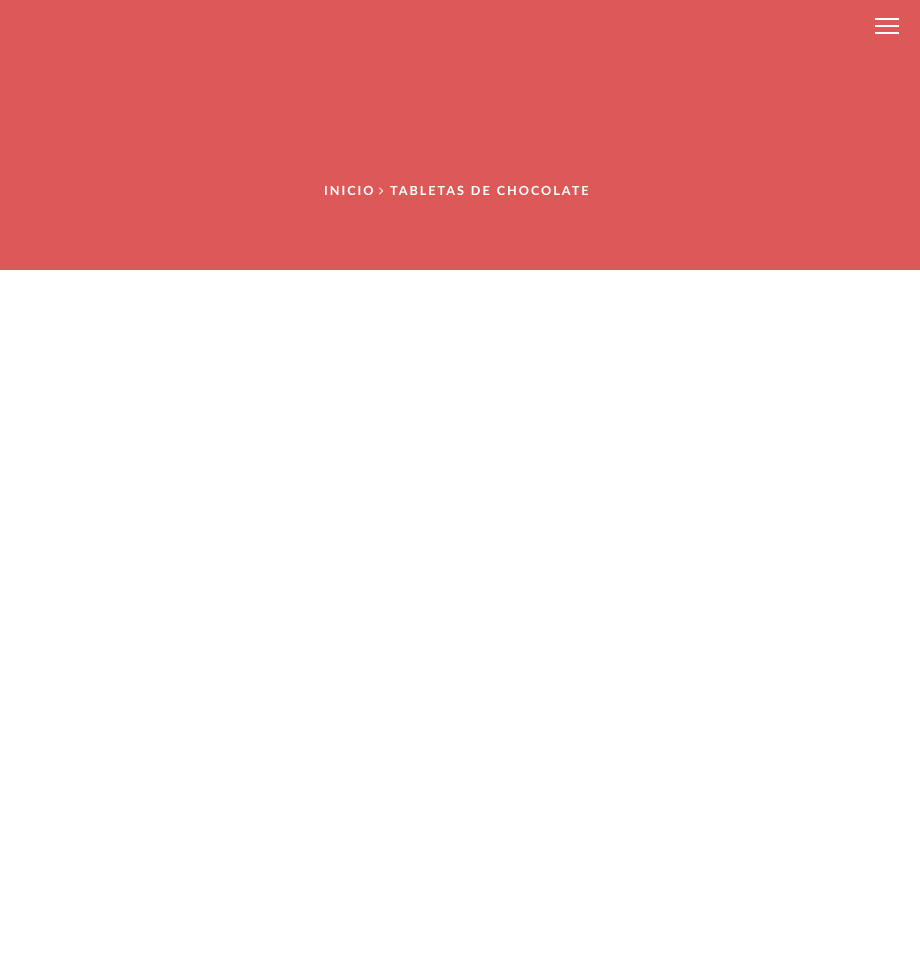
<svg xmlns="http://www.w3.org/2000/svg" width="920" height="969">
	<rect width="100%" height="100%" fill="#FFFFFF" />
	<rect x="0" y="0" width="920" height="270" fill="#DC5958" />
	<rect x="875" y="18" width="24" height="2" fill="#FFFFFF" />
	<rect x="875" y="25" width="24" height="2" fill="#FFFFFF" />
	<rect x="875" y="32" width="24" height="2" fill="#FFFFFF" />
	<text x="324" y="195" font-family="Lato" font-size="12.6" font-weight="700" letter-spacing="2" fill="#FFFFFF">INICIO</text>
	<image x="379" y="187" width="5" height="8" href="assets/img1.png" />
	<text x="390" y="195" font-family="Lato" font-size="12.6" font-weight="700" letter-spacing="2" fill="#FFFFFF">TABLETAS DE CHOCOLATE</text>
</svg>
